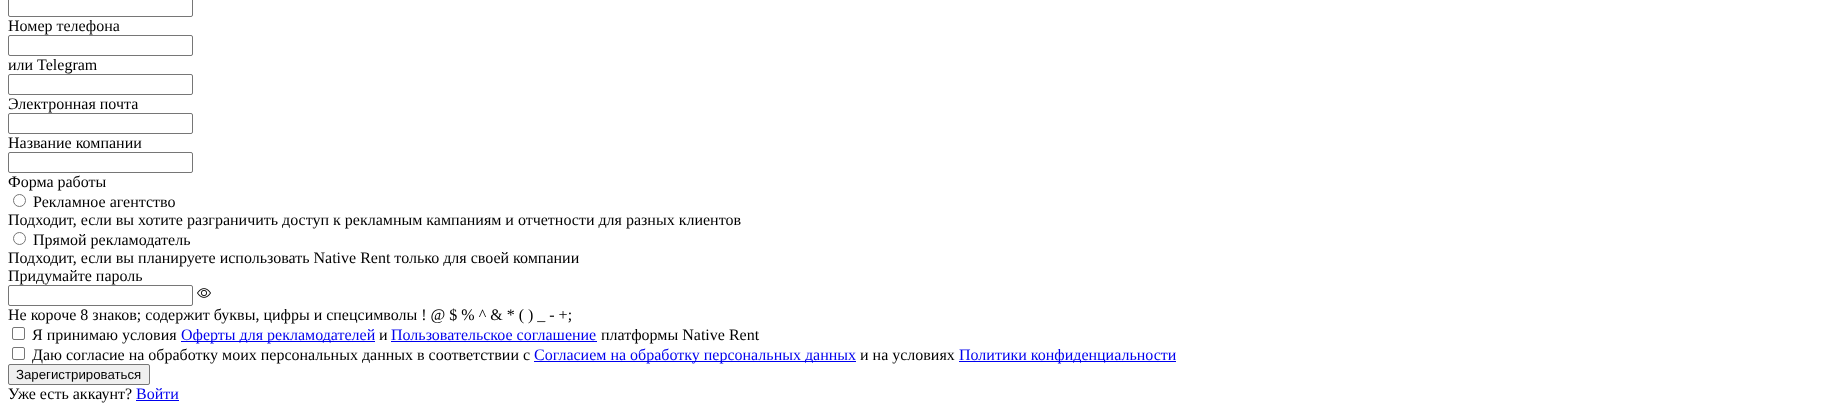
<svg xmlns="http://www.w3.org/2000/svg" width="1839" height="411">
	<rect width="100%" height="100%" fill="#FFFFFF" />
	<rect x="8.5" y="-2.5" width="184" height="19" rx="1.5" fill="none" stroke="#767676" />
	<text x="8" y="31" font-family="Liberation Serif" font-size="16" fill="#000000">Номер телефона</text>
	<rect x="8.5" y="35.5" width="184" height="20" rx="1.5" fill="none" stroke="#767676" />
	<text x="8" y="70" font-family="Liberation Serif" font-size="16" fill="#000000">или Telegram</text>
	<rect x="8.5" y="74.5" width="184" height="20" rx="1.5" fill="none" stroke="#767676" />
	<text x="8" y="109" font-family="Liberation Serif" font-size="16" fill="#000000">Электронная почта</text>
	<rect x="8.5" y="113.5" width="184" height="20" rx="1.5" fill="none" stroke="#767676" />
	<text x="8" y="148" font-family="Liberation Serif" font-size="16" fill="#000000">Название компании</text>
	<rect x="8.5" y="152.5" width="184" height="20" rx="1.5" fill="none" stroke="#767676" />
	<text x="8" y="187" font-family="Liberation Serif" font-size="16" fill="#000000">Форма работы</text>
	<circle cx="19.5" cy="200.5" r="6" fill="none" stroke="#767676" />
	<g font-family="Liberation Serif" font-size="16" fill="#000000">
		<text x="33" y="207">Рекламное агентство</text>
		<text x="8" y="225">Подходит, если вы хотите разграничить доступ к рекламным кампаниям и отчетности для разных клиентов</text>
	</g>
	<circle cx="19.5" cy="238.5" r="6" fill="none" stroke="#767676" />
	<g font-family="Liberation Serif" font-size="16" fill="#000000">
		<text x="33" y="245">Прямой рекламодатель</text>
		<text x="8" y="263">Подходит, если вы планируете использовать Native Rent только для своей компании</text>
		<text x="8" y="281">Придумайте пароль</text>
	</g>
	<rect x="8.5" y="285.5" width="184" height="20" rx="1.5" fill="none" stroke="#767676" />
	<image x="197" y="288" width="14" height="10" href="assets/img1.png" />
	<text x="8" y="320" font-family="Liberation Serif" font-size="16" fill="#000000">Не короче 8 знаков; содержит буквы, цифры и спецсимволы ! @ $ % ^ &amp; * ( ) _ - +;</text>
	<rect x="12.5" y="327.5" width="12" height="12" rx="1.5" fill="none" stroke="#767676" />
	<text x="32" y="340" font-family="Liberation Serif" font-size="16" fill="#000000">Я принимаю условия</text>
	<rect x="181" y="341" width="194" height="1" fill="#0000EE" />
	<text x="181" y="340" font-family="Liberation Serif" font-size="16" fill="#0000EE">Оферты для рекламодателей</text>
	<text x="379" y="340" font-family="Liberation Serif" font-size="16" fill="#000000">и</text>
	<text x="391" y="340" font-family="Liberation Serif" font-size="16" fill="#0000EE">Пользовательское соглашение</text>
	<rect x="391" y="341" width="206" height="1" fill="#0000EE" />
	<text x="601" y="340" font-family="Liberation Serif" font-size="16" fill="#000000">платформы Native Rent</text>
	<rect x="12.5" y="347.5" width="12" height="12" rx="1.5" fill="none" stroke="#767676" />
	<text x="32" y="360" font-family="Liberation Serif" font-size="16" fill="#000000">Даю согласие на обработку моих персональных данных в соответствии с</text>
	<rect x="534" y="361" width="322" height="1" fill="#0000EE" />
	<text x="534" y="360" font-family="Liberation Serif" font-size="16" fill="#0000EE">Согласием на обработку персональных данных</text>
	<text x="860" y="360" font-family="Liberation Serif" font-size="16" fill="#000000">и на условиях</text>
	<rect x="959" y="361" width="217" height="1" fill="#0000EE" />
	<text x="959" y="360" font-family="Liberation Serif" font-size="16" fill="#0000EE">Политики конфиденциальности</text>
	<rect x="8.5" y="364.5" width="141" height="20" rx="1.5" fill="#EFEFEF" stroke="#767676" />
	<text x="16" y="379" font-family="Liberation Sans" font-size="13.25" fill="#000000">Зарегистрироваться</text>
	<text x="8" y="399" font-family="Liberation Serif" font-size="16" fill="#000000">Уже есть аккаунт?</text>
	<text x="136" y="399" font-family="Liberation Serif" font-size="16" fill="#0000EE">Войти</text>
	<rect x="136" y="400" width="43" height="1" fill="#0000EE" />
</svg>
